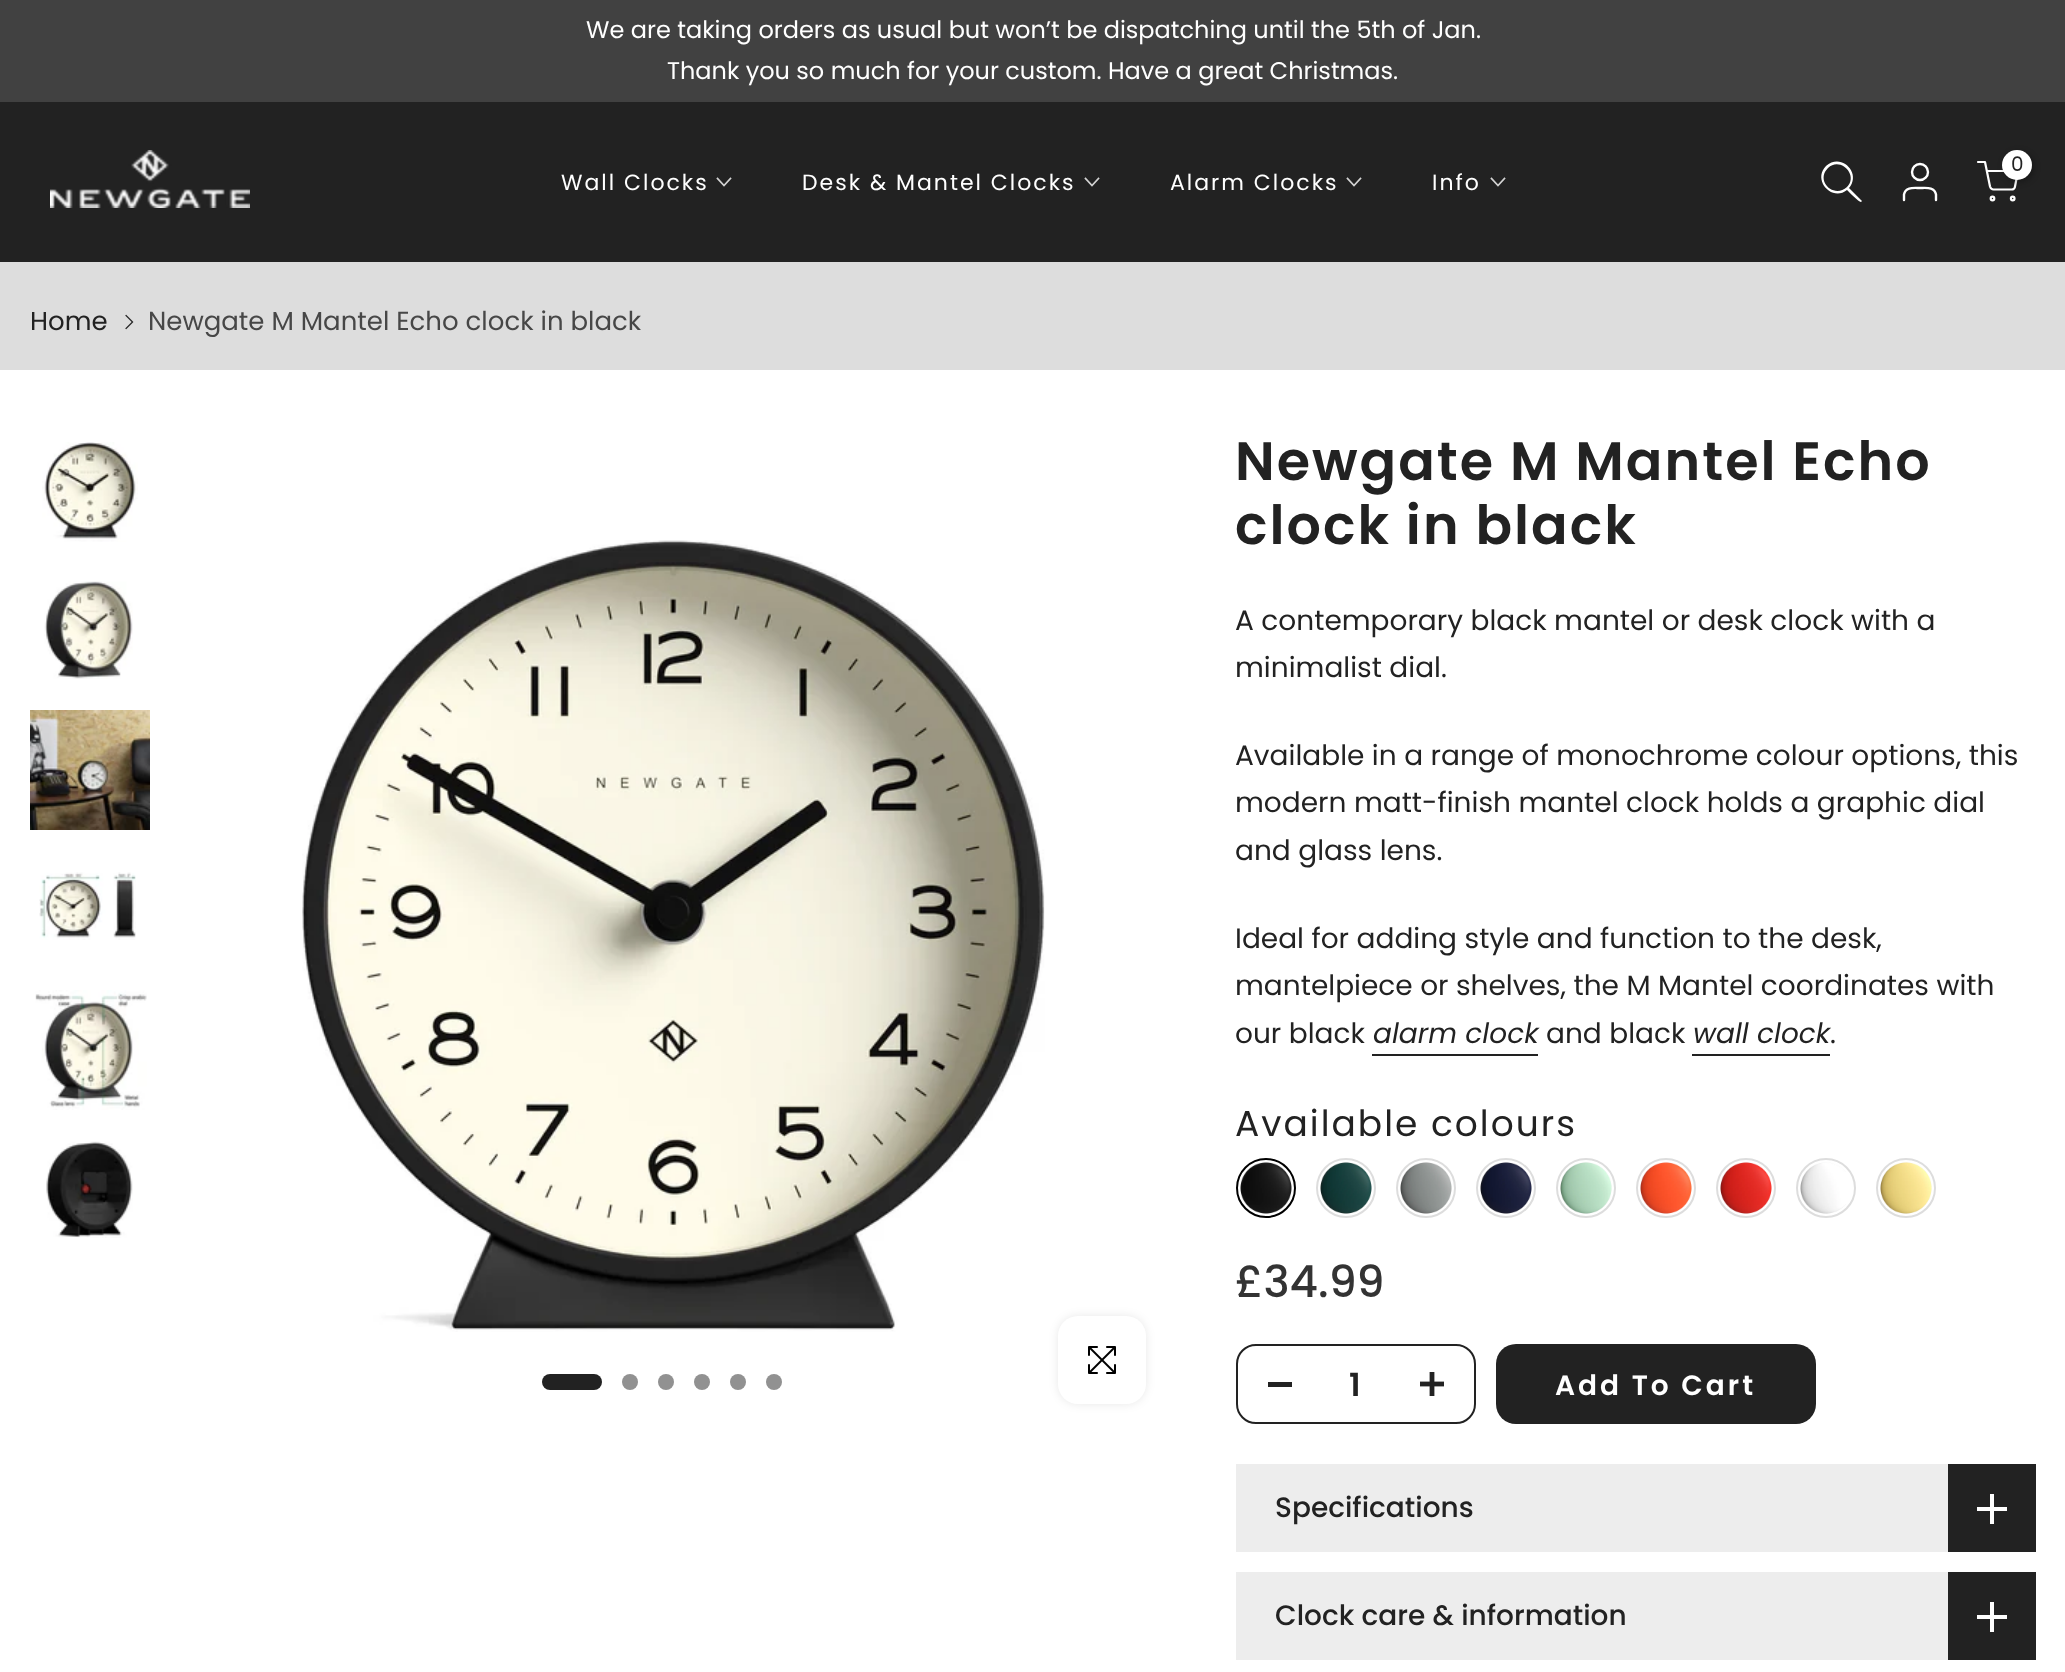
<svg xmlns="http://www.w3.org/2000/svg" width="2065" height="1672">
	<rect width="100%" height="100%" fill="#FFFFFF" />
	<rect x="0" y="0" width="2065" height="102" fill="#414141" />
	<g font-family="Poppins" font-size="24" fill="#FFFFFF">
		<text x="586" y="38">We are taking orders as usual but won’t be dispatching until the 5th of Jan.</text>
		<text x="667" y="79">Thank you so much for your custom. Have a great Christmas.</text>
	</g>
	<rect x="0" y="102" width="2065" height="160" fill="#222222" />
	<image x="50" y="150" width="200" height="58" href="assets/img1.png" />
	<path d="M1847 187C1834 199 1815 181 1828 168C1840 156 1859 175 1847 187ZM1847 190C1832 202 1812 180 1826 166C1841 152 1862 173 1849 188L1862 201L1861 202C1860 203 1849 192 1847 190Z" fill="#FFFFFF" fill-rule="evenodd" />
	<circle cx="1920" cy="172" r="8" fill="none" stroke="#FFFFFF" stroke-width="2.4" />
	<path d="M1936 200V194.5C1934.5 186.5 1926 188 1920 188C1914 188 1905.5 186.5 1904 194.5V200" fill="none" stroke="#FFFFFF" stroke-width="2.4" stroke-linecap="round" stroke-linejoin="round" />
	<path d="M1978 162H1985L1990 186.5C1990.5 188 1992 189.5 1993.5 189.5H2011.5C2013.5 189.5 2015 188 2015 186.5L2018 171H1987" fill="none" stroke="#FFFFFF" stroke-width="2.2" stroke-linecap="round" stroke-linejoin="round" />
	<rect x="2004" y="152" width="30" height="30" rx="15" fill="#000000" fill-opacity="0.3" filter="blur(3px)" />
	<circle cx="2017" cy="165" r="15" fill="#FFFFFF" />
	<text x="2011" y="171" font-family="Poppins" font-size="20" fill="#222222">0</text>
	<circle cx="1992.5" cy="198.5" r="1.8" fill="none" stroke="#FFFFFF" stroke-width="2.2" />
	<circle cx="2012.7" cy="198.5" r="1.8" fill="none" stroke="#FFFFFF" stroke-width="2.2" />
	<text x="561" y="190" font-family="Poppins" font-size="22" letter-spacing="2" fill="#FFFFFF">Wall Clocks</text>
	<path d="M730.5 178.5L724 185.5L717.5 178.5" fill="none" stroke="#D3D3D3" stroke-width="1.7" stroke-linecap="square" />
	<text x="802" y="190" font-family="Poppins" font-size="22" letter-spacing="2" fill="#FFFFFF">Desk &amp; Mantel Clocks</text>
	<path d="M1098.5 178.5L1092 185.5L1085.5 178.5" fill="none" stroke="#D3D3D3" stroke-width="1.7" stroke-linecap="square" />
	<text x="1170" y="190" font-family="Poppins" font-size="22" letter-spacing="2" fill="#FFFFFF">Alarm Clocks</text>
	<path d="M1360.5 178.5L1354 185.5L1347.5 178.5" fill="none" stroke="#D3D3D3" stroke-width="1.7" stroke-linecap="square" />
	<text x="1432" y="190" font-family="Poppins" font-size="22" letter-spacing="2" fill="#FFFFFF">Info</text>
	<path d="M1504.5 178.5L1498 185.5L1491.5 178.5" fill="none" stroke="#D3D3D3" stroke-width="1.7" stroke-linecap="square" />
	<rect x="0" y="262" width="2065" height="108" fill="#DDDDDD" />
	<text x="30" y="330" font-family="Poppins" font-size="26" fill="#222222">Home</text>
	<image x="125" y="314" width="9" height="16" href="assets/img2.png" />
	<text x="148" y="330" font-family="Poppins" font-size="26" fill="#474747">Newgate M Mantel Echo clock in black</text>
	<image x="42" y="442" width="96" height="100" href="assets/img3.png" />
	<image x="44" y="581" width="89" height="98" href="assets/img4.png" />
	<image x="30" y="710" width="120" height="120" href="assets/img5.png" />
	<image x="39" y="872" width="97" height="68" href="assets/img6.png" />
	<image x="35" y="990" width="112" height="120" href="assets/img7.png" />
	<image x="46" y="1141" width="87" height="97" href="assets/img8.png" />
	<image x="302" y="540" width="743" height="792" href="assets/img9.png" />
	<rect x="542" y="1374" width="60" height="16" rx="8" fill="#222222" />
	<circle cx="630" cy="1382" r="8" fill="#919191" />
	<circle cx="666" cy="1382" r="8" fill="#919191" />
	<circle cx="702" cy="1382" r="8" fill="#919191" />
	<circle cx="738" cy="1382" r="8" fill="#919191" />
	<circle cx="774" cy="1382" r="8" fill="#919191" />
	<rect x="1058" y="1316" width="88" height="88" rx="20" fill="#000000" fill-opacity="0.09" filter="blur(5px)" />
	<rect x="1058" y="1316" width="88" height="88" rx="20" fill="#FFFFFF" />
	<image x="1088" y="1346" width="28" height="28" href="assets/img10.png" />
	<g font-family="Poppins" font-size="54" font-weight="600" letter-spacing="2" fill="#222222">
		<text x="1235" y="480">Newgate M Mantel Echo</text>
		<text x="1235" y="544">clock in black</text>
	</g>
	<g font-family="Poppins" font-size="28" fill="#222222">
		<text x="1235" y="630">A contemporary black mantel or desk clock with a</text>
		<text x="1235" y="677">minimalist dial.</text>
		<text x="1235" y="765">Available in a range of monochrome colour options, this</text>
		<text x="1235" y="812">modern matt-finish mantel clock holds a graphic dial</text>
		<text x="1235" y="860">and glass lens.</text>
		<text x="1235" y="948">Ideal for adding style and function to the desk,</text>
		<text x="1235" y="995">mantelpiece or shelves, the M Mantel coordinates with</text>
		<text x="1235" y="1043">our black</text>
	</g>
	<text x="1373" y="1043" font-family="Poppins" font-size="28" font-style="italic" fill="#222222">alarm clock</text>
	<rect x="1372" y="1054" width="166" height="2" fill="#222222" />
	<text x="1546" y="1043" font-family="Poppins" font-size="28" fill="#222222">and black</text>
	<text x="1693" y="1043" font-family="Poppins" font-size="28" font-style="italic" fill="#222222">wall clock</text>
	<rect x="1692" y="1054" width="138" height="2" fill="#222222" />
	<text x="1830" y="1043" font-family="Poppins" font-size="28" fill="#222222">.</text>
	<text x="1235" y="1136" font-family="Poppins" font-size="36" letter-spacing="2" fill="#222222">Available colours</text>
	<circle cx="1266" cy="1188" r="29" fill="none" stroke="#000000" stroke-width="2" />
	<image x="1240" y="1162" width="52" height="52" href="assets/img11.png" />
	<circle cx="1346" cy="1188" r="29" fill="none" stroke="#DDDDDD" stroke-width="2" />
	<image x="1320" y="1162" width="52" height="52" href="assets/img12.png" />
	<circle cx="1426" cy="1188" r="29" fill="none" stroke="#DDDDDD" stroke-width="2" />
	<image x="1400" y="1162" width="52" height="52" href="assets/img13.png" />
	<circle cx="1506" cy="1188" r="29" fill="none" stroke="#DDDDDD" stroke-width="2" />
	<image x="1480" y="1162" width="52" height="52" href="assets/img14.png" />
	<circle cx="1586" cy="1188" r="29" fill="none" stroke="#DDDDDD" stroke-width="2" />
	<image x="1560" y="1162" width="52" height="52" href="assets/img15.png" />
	<circle cx="1666" cy="1188" r="29" fill="none" stroke="#DDDDDD" stroke-width="2" />
	<image x="1640" y="1162" width="52" height="52" href="assets/img16.png" />
	<circle cx="1746" cy="1188" r="29" fill="none" stroke="#DDDDDD" stroke-width="2" />
	<image x="1720" y="1162" width="52" height="52" href="assets/img17.png" />
	<circle cx="1826" cy="1188" r="29" fill="none" stroke="#DDDDDD" stroke-width="2" />
	<image x="1800" y="1162" width="46" height="52" href="assets/img18.png" />
	<circle cx="1906" cy="1188" r="29" fill="none" stroke="#DDDDDD" stroke-width="2" />
	<image x="1880" y="1162" width="52" height="52" href="assets/img19.png" />
	<text x="1235" y="1297" font-family="Poppins" font-size="44" font-weight="500" fill="#333333">£34.99</text>
	<rect x="1237" y="1345" width="238" height="78" rx="19" fill="none" stroke="#222222" stroke-width="2" />
	<rect x="1268" y="1382" width="24" height="5" fill="#222222" />
	<text x="1349" y="1396" font-family="Poppins" font-size="32" font-weight="600" fill="#222222">1</text>
	<image x="1420" y="1372" width="24" height="24" href="assets/img20.png" />
	<rect x="1496" y="1344" width="320" height="80" rx="20" fill="#222222" />
	<text x="1555" y="1395" font-family="Poppins" font-size="28" font-weight="600" letter-spacing="3" fill="#FFFFFF">Add To Cart</text>
	<rect x="1236" y="1464" width="712" height="88" fill="#EDEDED" />
	<text x="1275" y="1517" font-family="Poppins" font-size="28" font-weight="500" fill="#222222">Specifications</text>
	<rect x="1948" y="1464" width="88" height="88" fill="#222222" />
	<rect x="1990" y="1494" width="4" height="30" fill="#FFFFFF" />
	<rect x="1977" y="1507" width="30" height="4" fill="#FFFFFF" />
	<rect x="1236" y="1572" width="712" height="88" fill="#EDEDED" />
	<text x="1275" y="1625" font-family="Poppins" font-size="28" font-weight="500" fill="#222222">Clock care &amp; information</text>
	<rect x="1948" y="1572" width="88" height="88" fill="#222222" />
	<rect x="1990" y="1602" width="4" height="30" fill="#FFFFFF" />
	<rect x="1977" y="1615" width="30" height="4" fill="#FFFFFF" />
</svg>
